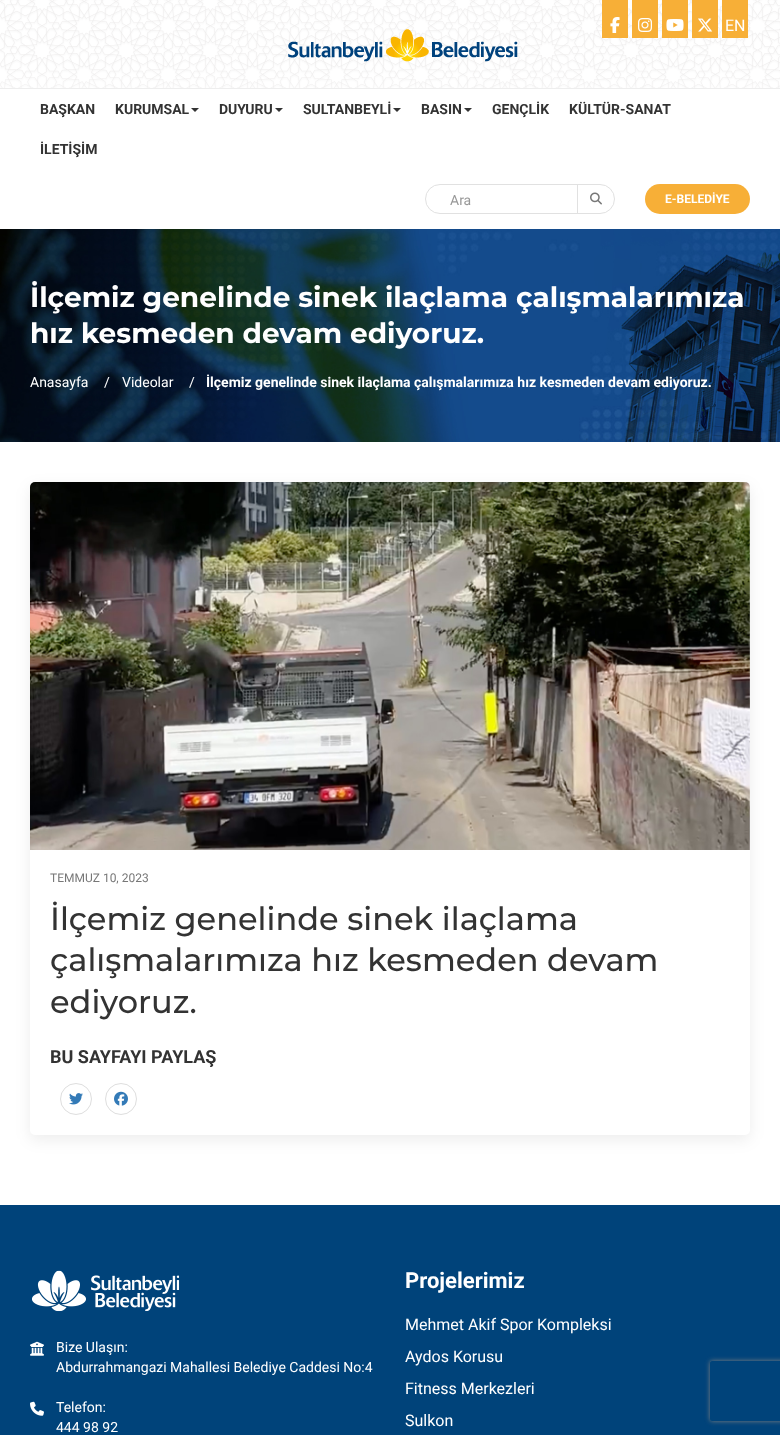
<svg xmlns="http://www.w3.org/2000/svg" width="780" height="1435">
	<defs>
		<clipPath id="clip1"><path d="M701 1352H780V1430H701ZM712 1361H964C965 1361 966 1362 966 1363V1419C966 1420 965 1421 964 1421H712C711 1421 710 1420 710 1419V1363C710 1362 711 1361 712 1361Z" clip-rule="evenodd" /></clipPath>
	</defs>
	<rect width="100%" height="100%" fill="#FFFFFF" />
	<image x="0" y="0" width="780" height="88" href="assets/img1.png" />
	<rect x="602" y="0" width="26" height="38" fill="#F7AF37" />
	<image x="610" y="17" width="10" height="16" href="assets/img2.png" />
	<rect x="632" y="0" width="26" height="38" fill="#F7AF37" />
	<image x="638" y="18" width="14" height="14" href="assets/img3.png" />
	<rect x="662" y="0" width="26" height="38" fill="#F7AF37" />
	<image x="666" y="19" width="18" height="12" href="assets/img4.png" />
	<rect x="692" y="0" width="26" height="38" fill="#F7AF37" />
	<image x="698" y="18" width="15" height="14" href="assets/img5.png" />
	<rect x="722" y="0" width="26" height="38" fill="#F7AF37" />
	<text x="725" y="31" font-family="Roboto" font-size="16" fill="#FFFFFF">EN</text>
	<image x="288" y="29" width="230" height="33" href="assets/img6.png" />
	<rect x="0" y="88" width="780" height="1" fill="#EEEEEE" />
	<g font-family="Roboto" font-size="14" font-weight="700" fill="#333333">
		<text x="40" y="114">BAŞKAN</text>
		<text x="115" y="114">KURUMSAL</text>
	</g>
	<path d="M191 108H199L195 112Z" fill="#333333" />
	<text x="219" y="114" font-family="Roboto" font-size="14" font-weight="700" fill="#333333">DUYURU</text>
	<path d="M275 108H283L279 112Z" fill="#333333" />
	<text x="303" y="114" font-family="Roboto" font-size="14" font-weight="700" fill="#333333">SULTANBEYLİ</text>
	<path d="M393 108H401L397 112Z" fill="#333333" />
	<text x="421" y="114" font-family="Roboto" font-size="14" font-weight="700" fill="#333333">BASIN</text>
	<path d="M464 108H472L468 112Z" fill="#333333" />
	<g font-family="Roboto" font-size="14" font-weight="700" fill="#333333">
		<text x="492" y="114">GENÇLİK</text>
		<text x="569" y="114">KÜLTÜR-SANAT</text>
		<text x="40" y="154">İLETİŞİM</text>
	</g>
	<rect x="425.5" y="184.5" width="189" height="29" rx="14.5" fill="none" stroke="#E1E1E1" />
	<text x="450" y="205" font-family="Roboto" font-size="14" fill="#999999">Ara</text>
	<rect x="577" y="185" width="1" height="28" fill="#E1E1E1" />
	<image x="590" y="192" width="12" height="13" href="assets/img7.png" />
	<rect x="645" y="184" width="105" height="30" rx="15" fill="#F7AF37" />
	<text x="665" y="203" font-family="Roboto" font-size="12" font-weight="700" fill="#FFFFFF">E-BELEDİYE</text>
	<image x="0" y="229" width="780" height="213" href="assets/img8.png" />
	<g font-family="Montserrat" font-size="28" font-weight="700" fill="#FFFFFF">
		<text x="30" y="307">İlçemiz genelinde sinek ilaçlama çalışmalarımıza</text>
		<text x="30" y="343">hız kesmeden devam ediyoruz.</text>
	</g>
	<g font-family="Roboto" font-size="14" fill="#FFFFFF">
		<text x="30" y="387">Anasayfa</text>
		<text x="104" y="387">/</text>
		<text x="122" y="387">Videolar</text>
		<text x="189" y="387">/</text>
	</g>
	<text x="206" y="387" font-family="Roboto" font-size="14" font-weight="700" fill="#FFFFFF">İlçemiz genelinde sinek ilaçlama çalışmalarımıza hız kesmeden devam ediyoruz.</text>
	<rect x="30" y="487" width="720" height="653" rx="5" fill="#000000" fill-opacity="0.07" filter="blur(7.5px)" />
	<rect x="30" y="482" width="720" height="653" rx="5" fill="#FFFFFF" />
	<image x="30" y="482" width="720" height="368" href="assets/img9.png" />
	<text x="50" y="882" font-family="Roboto" font-size="12" fill="#777777">TEMMUZ 10, 2023</text>
	<g font-family="Montserrat" font-size="32" font-weight="500" fill="#333333">
		<text x="50" y="930">İlçemiz genelinde sinek ilaçlama</text>
		<text x="50" y="971">çalışmalarımıza hız kesmeden devam</text>
		<text x="50" y="1013">ediyoruz.</text>
	</g>
	<text x="50" y="1063" font-family="Roboto" font-size="18" font-weight="700" fill="#333333">BU SAYFAYI PAYLAŞ</text>
	<circle cx="76" cy="1099" r="15.5" fill="none" stroke="#DEDEDE" />
	<image x="69" y="1093" width="14" height="12" href="assets/img10.png" />
	<circle cx="121" cy="1099" r="15.5" fill="none" stroke="#DEDEDE" />
	<image x="114" y="1091" width="14" height="15" href="assets/img11.png" />
	<rect x="0" y="1205" width="780" height="230" fill="#00437A" />
	<image x="32" y="1270" width="148" height="42" href="assets/img12.png" />
	<image x="30" y="1341" width="14" height="15" href="assets/img13.png" />
	<g font-family="Roboto" font-size="14" fill="#FFFFFF">
		<text x="56" y="1352">Bize Ulaşın:</text>
		<text x="56" y="1372">Abdurrahmangazi Mahallesi Belediye Caddesi No:4</text>
	</g>
	<image x="30" y="1401" width="14" height="15" href="assets/img14.png" />
	<g font-family="Roboto" font-size="14" fill="#FFFFFF">
		<text x="56" y="1412">Telefon:</text>
		<text x="56" y="1432">444 98 92</text>
	</g>
	<text x="405" y="1288" font-family="Roboto" font-size="22" font-weight="700" fill="#FFFFFF">Projelerimiz</text>
	<g font-family="Roboto" font-size="16" fill="#FFFFFF">
		<text x="405" y="1330">Mehmet Akif Spor Kompleksi</text>
		<text x="405" y="1362">Aydos Korusu</text>
		<text x="405" y="1394">Fitness Merkezleri</text>
		<text x="405" y="1426">Sulkon</text>
	</g>
	<g clip-path="url(#clip1)">
		<rect x="710" y="1361" width="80" height="60" rx="2" fill="#808080" filter="blur(2.5px)" />
	</g>
</svg>
